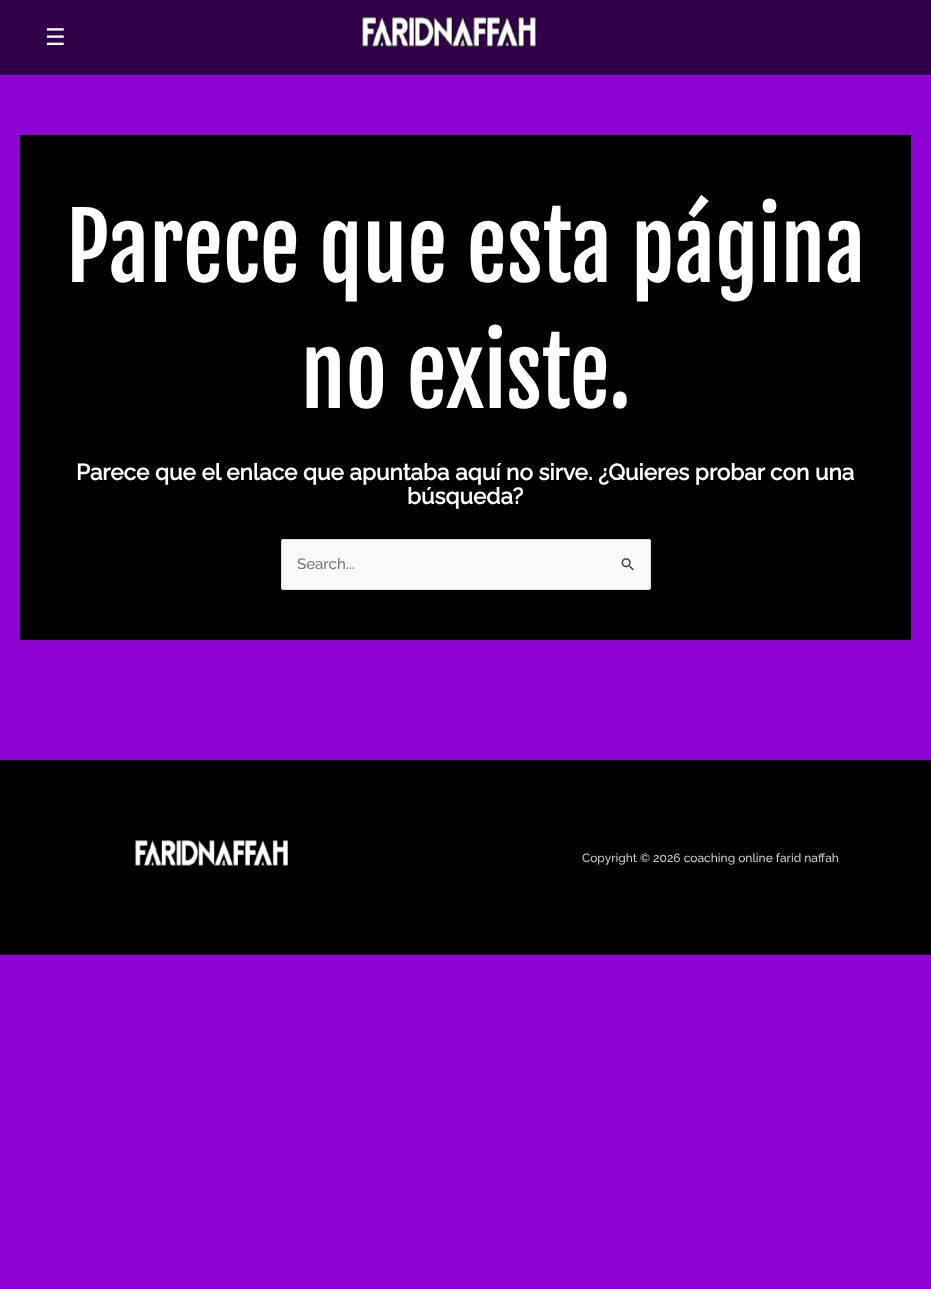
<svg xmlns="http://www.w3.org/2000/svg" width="931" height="1289">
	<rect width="100%" height="100%" fill="#8E03D4" />
	<rect x="0" y="0" width="931" height="75" fill="#300148" />
	<text x="45" y="45" font-family="DejaVu Sans" font-size="23" fill="#FFFFFF">☰</text>
	<image x="362" y="17" width="174" height="30" href="assets/img1.png" />
	<rect x="20" y="135" width="891" height="505" fill="#000000" />
	<g font-family="Fjalla One" font-size="90" fill="#FFFFFF">
		<text x="66" y="282">Parece que esta página</text>
		<text x="301" y="408">no existe.</text>
	</g>
	<g font-family="Raleway" font-size="22.5" font-weight="700" fill="#FFFFFF">
		<text x="76" y="480">Parece que el enlace que apuntaba aquí no sirve. ¿Quieres probar con una</text>
		<text x="407" y="504">búsqueda?</text>
	</g>
	<rect x="281.5" y="539.5" width="369" height="50" rx="1.5" fill="#FAFAFA" stroke="#DDDDDD" />
	<text x="297" y="569" font-family="Raleway" font-size="15" font-weight="100" fill="#757575">Search...</text>
	<image x="621" y="558" width="13" height="13" href="assets/img2.png" />
	<rect x="0" y="760" width="931" height="195" fill="#000000" />
	<image x="135" y="840" width="153" height="26" href="assets/img3.png" />
	<text x="582" y="862" font-family="Raleway" font-size="12" font-weight="100" fill="#CCCCCC">Copyright © 2026 coaching online farid naffah</text>
</svg>
